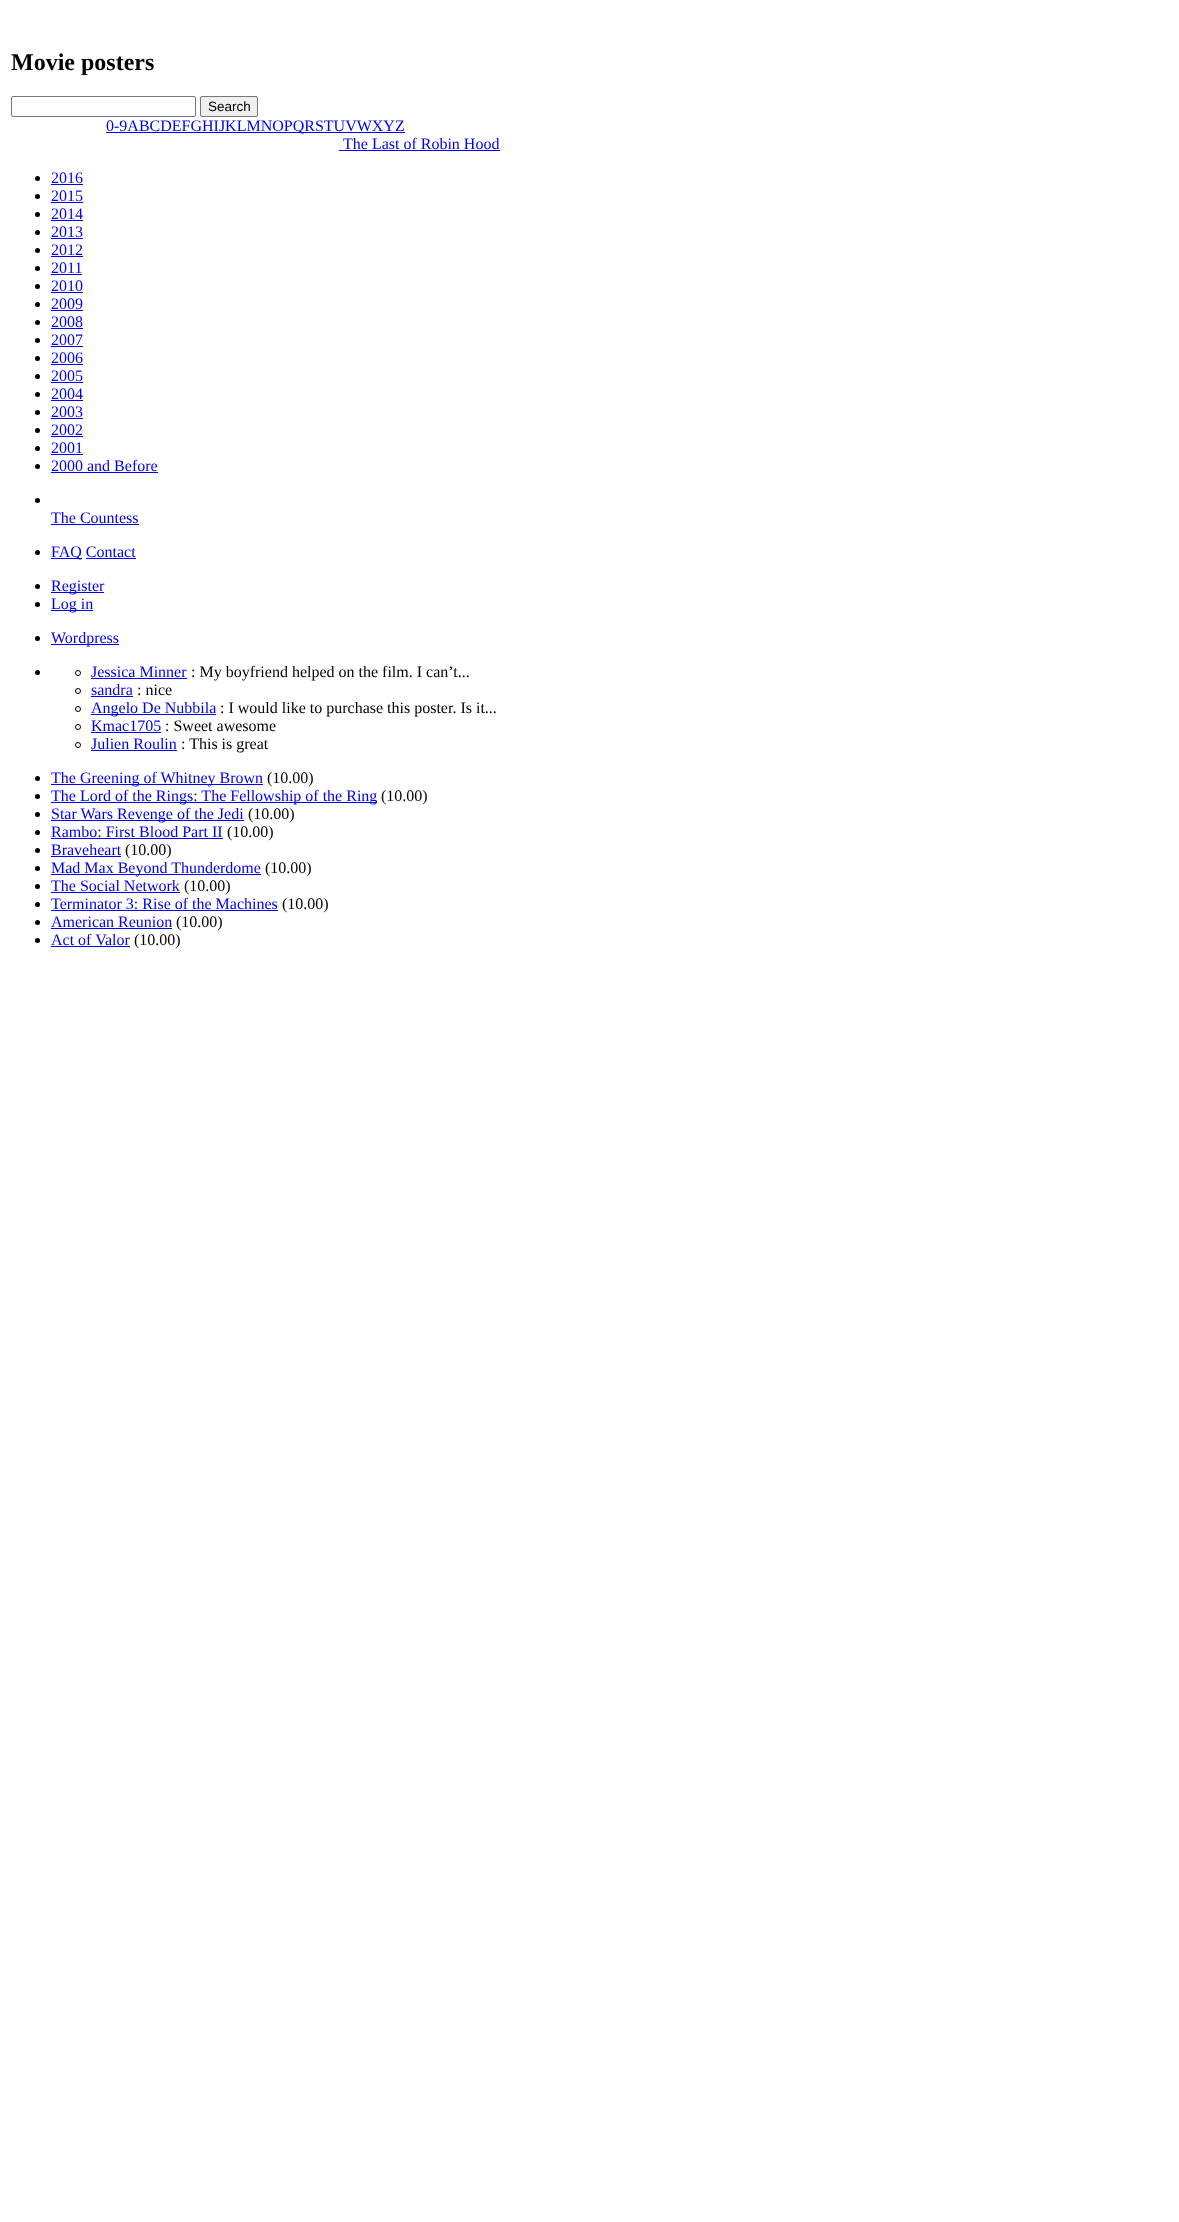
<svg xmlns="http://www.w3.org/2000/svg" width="1179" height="2222">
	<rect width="100%" height="100%" fill="#FFFFFF" />
	<text x="11" y="70" font-family="Liberation Serif" font-size="24" font-weight="700" fill="#000000">Movie posters</text>
	<rect x="11.5" y="96.5" width="184" height="20" rx="1.5" fill="none" stroke="#767676" />
	<rect x="200.5" y="96.5" width="57" height="20" rx="1.5" fill="#EFEFEF" stroke="#767676" />
	<text x="208" y="111" font-family="Liberation Sans" font-size="13.5" fill="#000000">Search</text>
	<rect x="106" y="132" width="277" height="1" fill="#0000EE" />
	<text x="106" y="131" font-family="Liberation Serif" font-size="16" fill="#0000EE">0-9ABCDEFGHIJKLMNOPQRSTUVWXYZ</text>
	<rect x="383" y="132" width="22" height="1" fill="#0000EE" />
	<text x="343" y="149" font-family="Liberation Serif" font-size="16" fill="#0000EE">The Last of Robin Hood</text>
	<rect x="339" y="150" width="161" height="1" fill="#0000EE" />
	<circle cx="37.5" cy="178.5" r="2.5" fill="#000000" />
	<text x="51" y="183" font-family="Liberation Serif" font-size="16" fill="#0000EE">2016</text>
	<rect x="51" y="184" width="32" height="1" fill="#0000EE" />
	<circle cx="37.5" cy="196.5" r="2.5" fill="#000000" />
	<text x="51" y="201" font-family="Liberation Serif" font-size="16" fill="#0000EE">2015</text>
	<rect x="51" y="202" width="32" height="1" fill="#0000EE" />
	<circle cx="37.5" cy="214.5" r="2.5" fill="#000000" />
	<text x="51" y="219" font-family="Liberation Serif" font-size="16" fill="#0000EE">2014</text>
	<rect x="51" y="220" width="32" height="1" fill="#0000EE" />
	<circle cx="37.5" cy="232.5" r="2.5" fill="#000000" />
	<text x="51" y="237" font-family="Liberation Serif" font-size="16" fill="#0000EE">2013</text>
	<rect x="51" y="238" width="32" height="1" fill="#0000EE" />
	<circle cx="37.5" cy="250.5" r="2.5" fill="#000000" />
	<text x="51" y="255" font-family="Liberation Serif" font-size="16" fill="#0000EE">2012</text>
	<rect x="51" y="256" width="32" height="1" fill="#0000EE" />
	<circle cx="37.5" cy="268.5" r="2.5" fill="#000000" />
	<text x="51" y="273" font-family="Liberation Serif" font-size="16" fill="#0000EE">2011</text>
	<rect x="51" y="274" width="31" height="1" fill="#0000EE" />
	<circle cx="37.5" cy="286.5" r="2.5" fill="#000000" />
	<text x="51" y="291" font-family="Liberation Serif" font-size="16" fill="#0000EE">2010</text>
	<rect x="51" y="292" width="32" height="1" fill="#0000EE" />
	<circle cx="37.5" cy="304.5" r="2.5" fill="#000000" />
	<text x="51" y="309" font-family="Liberation Serif" font-size="16" fill="#0000EE">2009</text>
	<rect x="51" y="310" width="32" height="1" fill="#0000EE" />
	<circle cx="37.5" cy="322.5" r="2.5" fill="#000000" />
	<text x="51" y="327" font-family="Liberation Serif" font-size="16" fill="#0000EE">2008</text>
	<rect x="51" y="328" width="32" height="1" fill="#0000EE" />
	<circle cx="37.5" cy="340.5" r="2.5" fill="#000000" />
	<text x="51" y="345" font-family="Liberation Serif" font-size="16" fill="#0000EE">2007</text>
	<rect x="51" y="346" width="32" height="1" fill="#0000EE" />
	<circle cx="37.5" cy="358.5" r="2.5" fill="#000000" />
	<text x="51" y="363" font-family="Liberation Serif" font-size="16" fill="#0000EE">2006</text>
	<rect x="51" y="364" width="32" height="1" fill="#0000EE" />
	<circle cx="37.5" cy="376.5" r="2.5" fill="#000000" />
	<text x="51" y="381" font-family="Liberation Serif" font-size="16" fill="#0000EE">2005</text>
	<rect x="51" y="382" width="32" height="1" fill="#0000EE" />
	<circle cx="37.5" cy="394.5" r="2.5" fill="#000000" />
	<text x="51" y="399" font-family="Liberation Serif" font-size="16" fill="#0000EE">2004</text>
	<rect x="51" y="400" width="32" height="1" fill="#0000EE" />
	<circle cx="37.5" cy="412.5" r="2.5" fill="#000000" />
	<text x="51" y="417" font-family="Liberation Serif" font-size="16" fill="#0000EE">2003</text>
	<rect x="51" y="418" width="32" height="1" fill="#0000EE" />
	<circle cx="37.5" cy="430.5" r="2.5" fill="#000000" />
	<text x="51" y="435" font-family="Liberation Serif" font-size="16" fill="#0000EE">2002</text>
	<rect x="51" y="436" width="32" height="1" fill="#0000EE" />
	<circle cx="37.5" cy="448.5" r="2.5" fill="#000000" />
	<text x="51" y="453" font-family="Liberation Serif" font-size="16" fill="#0000EE">2001</text>
	<rect x="51" y="454" width="32" height="1" fill="#0000EE" />
	<circle cx="37.5" cy="466.5" r="2.5" fill="#000000" />
	<text x="51" y="471" font-family="Liberation Serif" font-size="16" fill="#0000EE">2000 and Before</text>
	<rect x="51" y="472" width="107" height="1" fill="#0000EE" />
	<circle cx="37.5" cy="500.5" r="2.5" fill="#000000" />
	<text x="51" y="523" font-family="Liberation Serif" font-size="16" fill="#0000EE">The Countess</text>
	<rect x="51" y="524" width="88" height="1" fill="#0000EE" />
	<circle cx="37.5" cy="552.5" r="2.5" fill="#000000" />
	<rect x="51" y="558" width="31" height="1" fill="#0000EE" />
	<text x="51" y="557" font-family="Liberation Serif" font-size="16" fill="#0000EE">FAQ Contact</text>
	<rect x="86" y="558" width="50" height="1" fill="#0000EE" />
	<circle cx="37.5" cy="586.5" r="2.5" fill="#000000" />
	<rect x="51" y="592" width="53" height="1" fill="#0000EE" />
	<text x="51" y="591" font-family="Liberation Serif" font-size="16" fill="#0000EE">Register</text>
	<circle cx="37.5" cy="604.5" r="2.5" fill="#000000" />
	<rect x="51" y="610" width="42" height="1" fill="#0000EE" />
	<text x="51" y="609" font-family="Liberation Serif" font-size="16" fill="#0000EE">Log in</text>
	<circle cx="37.5" cy="638.5" r="2.5" fill="#000000" />
	<rect x="51" y="644" width="68" height="1" fill="#0000EE" />
	<text x="51" y="643" font-family="Liberation Serif" font-size="16" fill="#0000EE">Wordpress</text>
	<circle cx="37.5" cy="672.5" r="2.5" fill="#000000" />
	<circle cx="78" cy="673" r="2.5" fill="none" stroke="#000000" />
	<text x="91" y="677" font-family="Liberation Serif" font-size="16" fill="#0000EE">Jessica Minner</text>
	<rect x="91" y="678" width="96" height="1" fill="#0000EE" />
	<text x="191" y="677" font-family="Liberation Serif" font-size="16" fill="#000000">: My boyfriend helped on the film. I can’t...</text>
	<circle cx="78" cy="691" r="2.5" fill="none" stroke="#000000" />
	<text x="91" y="695" font-family="Liberation Serif" font-size="16" fill="#0000EE">sandra</text>
	<rect x="91" y="696" width="42" height="1" fill="#0000EE" />
	<text x="137" y="695" font-family="Liberation Serif" font-size="16" fill="#000000">: nice</text>
	<circle cx="78" cy="709" r="2.5" fill="none" stroke="#000000" />
	<rect x="91" y="714" width="125" height="1" fill="#0000EE" />
	<text x="91" y="713" font-family="Liberation Serif" font-size="16" fill="#0000EE">Angelo De Nubbila</text>
	<text x="220" y="713" font-family="Liberation Serif" font-size="16" fill="#000000">: I would like to purchase this poster. Is it...</text>
	<circle cx="78" cy="727" r="2.5" fill="none" stroke="#000000" />
	<text x="91" y="731" font-family="Liberation Serif" font-size="16" fill="#0000EE">Kmac1705</text>
	<rect x="91" y="732" width="70" height="1" fill="#0000EE" />
	<text x="165" y="731" font-family="Liberation Serif" font-size="16" fill="#000000">: Sweet awesome</text>
	<circle cx="78" cy="745" r="2.5" fill="none" stroke="#000000" />
	<text x="91" y="749" font-family="Liberation Serif" font-size="16" fill="#0000EE">Julien Roulin</text>
	<rect x="91" y="750" width="86" height="1" fill="#0000EE" />
	<text x="181" y="749" font-family="Liberation Serif" font-size="16" fill="#000000">: This is great</text>
	<circle cx="37.5" cy="778.5" r="2.5" fill="#000000" />
	<rect x="51" y="784" width="212" height="1" fill="#0000EE" />
	<text x="51" y="783" font-family="Liberation Serif" font-size="16" fill="#0000EE">The Greening of Whitney Brown</text>
	<text x="267" y="783" font-family="Liberation Serif" font-size="16" fill="#000000">(10.00)</text>
	<circle cx="37.5" cy="796.5" r="2.5" fill="#000000" />
	<rect x="51" y="802" width="326" height="1" fill="#0000EE" />
	<text x="51" y="801" font-family="Liberation Serif" font-size="16" fill="#0000EE">The Lord of the Rings: The Fellowship of the Ring</text>
	<text x="381" y="801" font-family="Liberation Serif" font-size="16" fill="#000000">(10.00)</text>
	<circle cx="37.5" cy="814.5" r="2.5" fill="#000000" />
	<rect x="51" y="820" width="193" height="1" fill="#0000EE" />
	<text x="51" y="819" font-family="Liberation Serif" font-size="16" fill="#0000EE">Star Wars Revenge of the Jedi</text>
	<text x="248" y="819" font-family="Liberation Serif" font-size="16" fill="#000000">(10.00)</text>
	<circle cx="37.5" cy="832.5" r="2.5" fill="#000000" />
	<text x="51" y="837" font-family="Liberation Serif" font-size="16" fill="#0000EE">Rambo: First Blood Part II</text>
	<rect x="51" y="838" width="172" height="1" fill="#0000EE" />
	<text x="227" y="837" font-family="Liberation Serif" font-size="16" fill="#000000">(10.00)</text>
	<circle cx="37.5" cy="850.5" r="2.5" fill="#000000" />
	<text x="51" y="855" font-family="Liberation Serif" font-size="16" fill="#0000EE">Braveheart</text>
	<rect x="51" y="856" width="70" height="1" fill="#0000EE" />
	<text x="125" y="855" font-family="Liberation Serif" font-size="16" fill="#000000">(10.00)</text>
	<circle cx="37.5" cy="868.5" r="2.5" fill="#000000" />
	<rect x="51" y="874" width="210" height="1" fill="#0000EE" />
	<text x="51" y="873" font-family="Liberation Serif" font-size="16" fill="#0000EE">Mad Max Beyond Thunderdome</text>
	<text x="265" y="873" font-family="Liberation Serif" font-size="16" fill="#000000">(10.00)</text>
	<circle cx="37.5" cy="886.5" r="2.5" fill="#000000" />
	<text x="51" y="891" font-family="Liberation Serif" font-size="16" fill="#0000EE">The Social Network</text>
	<rect x="51" y="892" width="129" height="1" fill="#0000EE" />
	<text x="184" y="891" font-family="Liberation Serif" font-size="16" fill="#000000">(10.00)</text>
	<circle cx="37.5" cy="904.5" r="2.5" fill="#000000" />
	<text x="51" y="909" font-family="Liberation Serif" font-size="16" fill="#0000EE">Terminator 3: Rise of the Machines</text>
	<rect x="51" y="910" width="227" height="1" fill="#0000EE" />
	<text x="282" y="909" font-family="Liberation Serif" font-size="16" fill="#000000">(10.00)</text>
	<circle cx="37.5" cy="922.5" r="2.5" fill="#000000" />
	<text x="51" y="927" font-family="Liberation Serif" font-size="16" fill="#0000EE">American Reunion</text>
	<rect x="51" y="928" width="121" height="1" fill="#0000EE" />
	<text x="176" y="927" font-family="Liberation Serif" font-size="16" fill="#000000">(10.00)</text>
	<circle cx="37.5" cy="940.5" r="2.5" fill="#000000" />
	<text x="51" y="945" font-family="Liberation Serif" font-size="16" fill="#0000EE">Act of Valor</text>
	<rect x="51" y="946" width="79" height="1" fill="#0000EE" />
	<text x="134" y="945" font-family="Liberation Serif" font-size="16" fill="#000000">(10.00)</text>
</svg>
